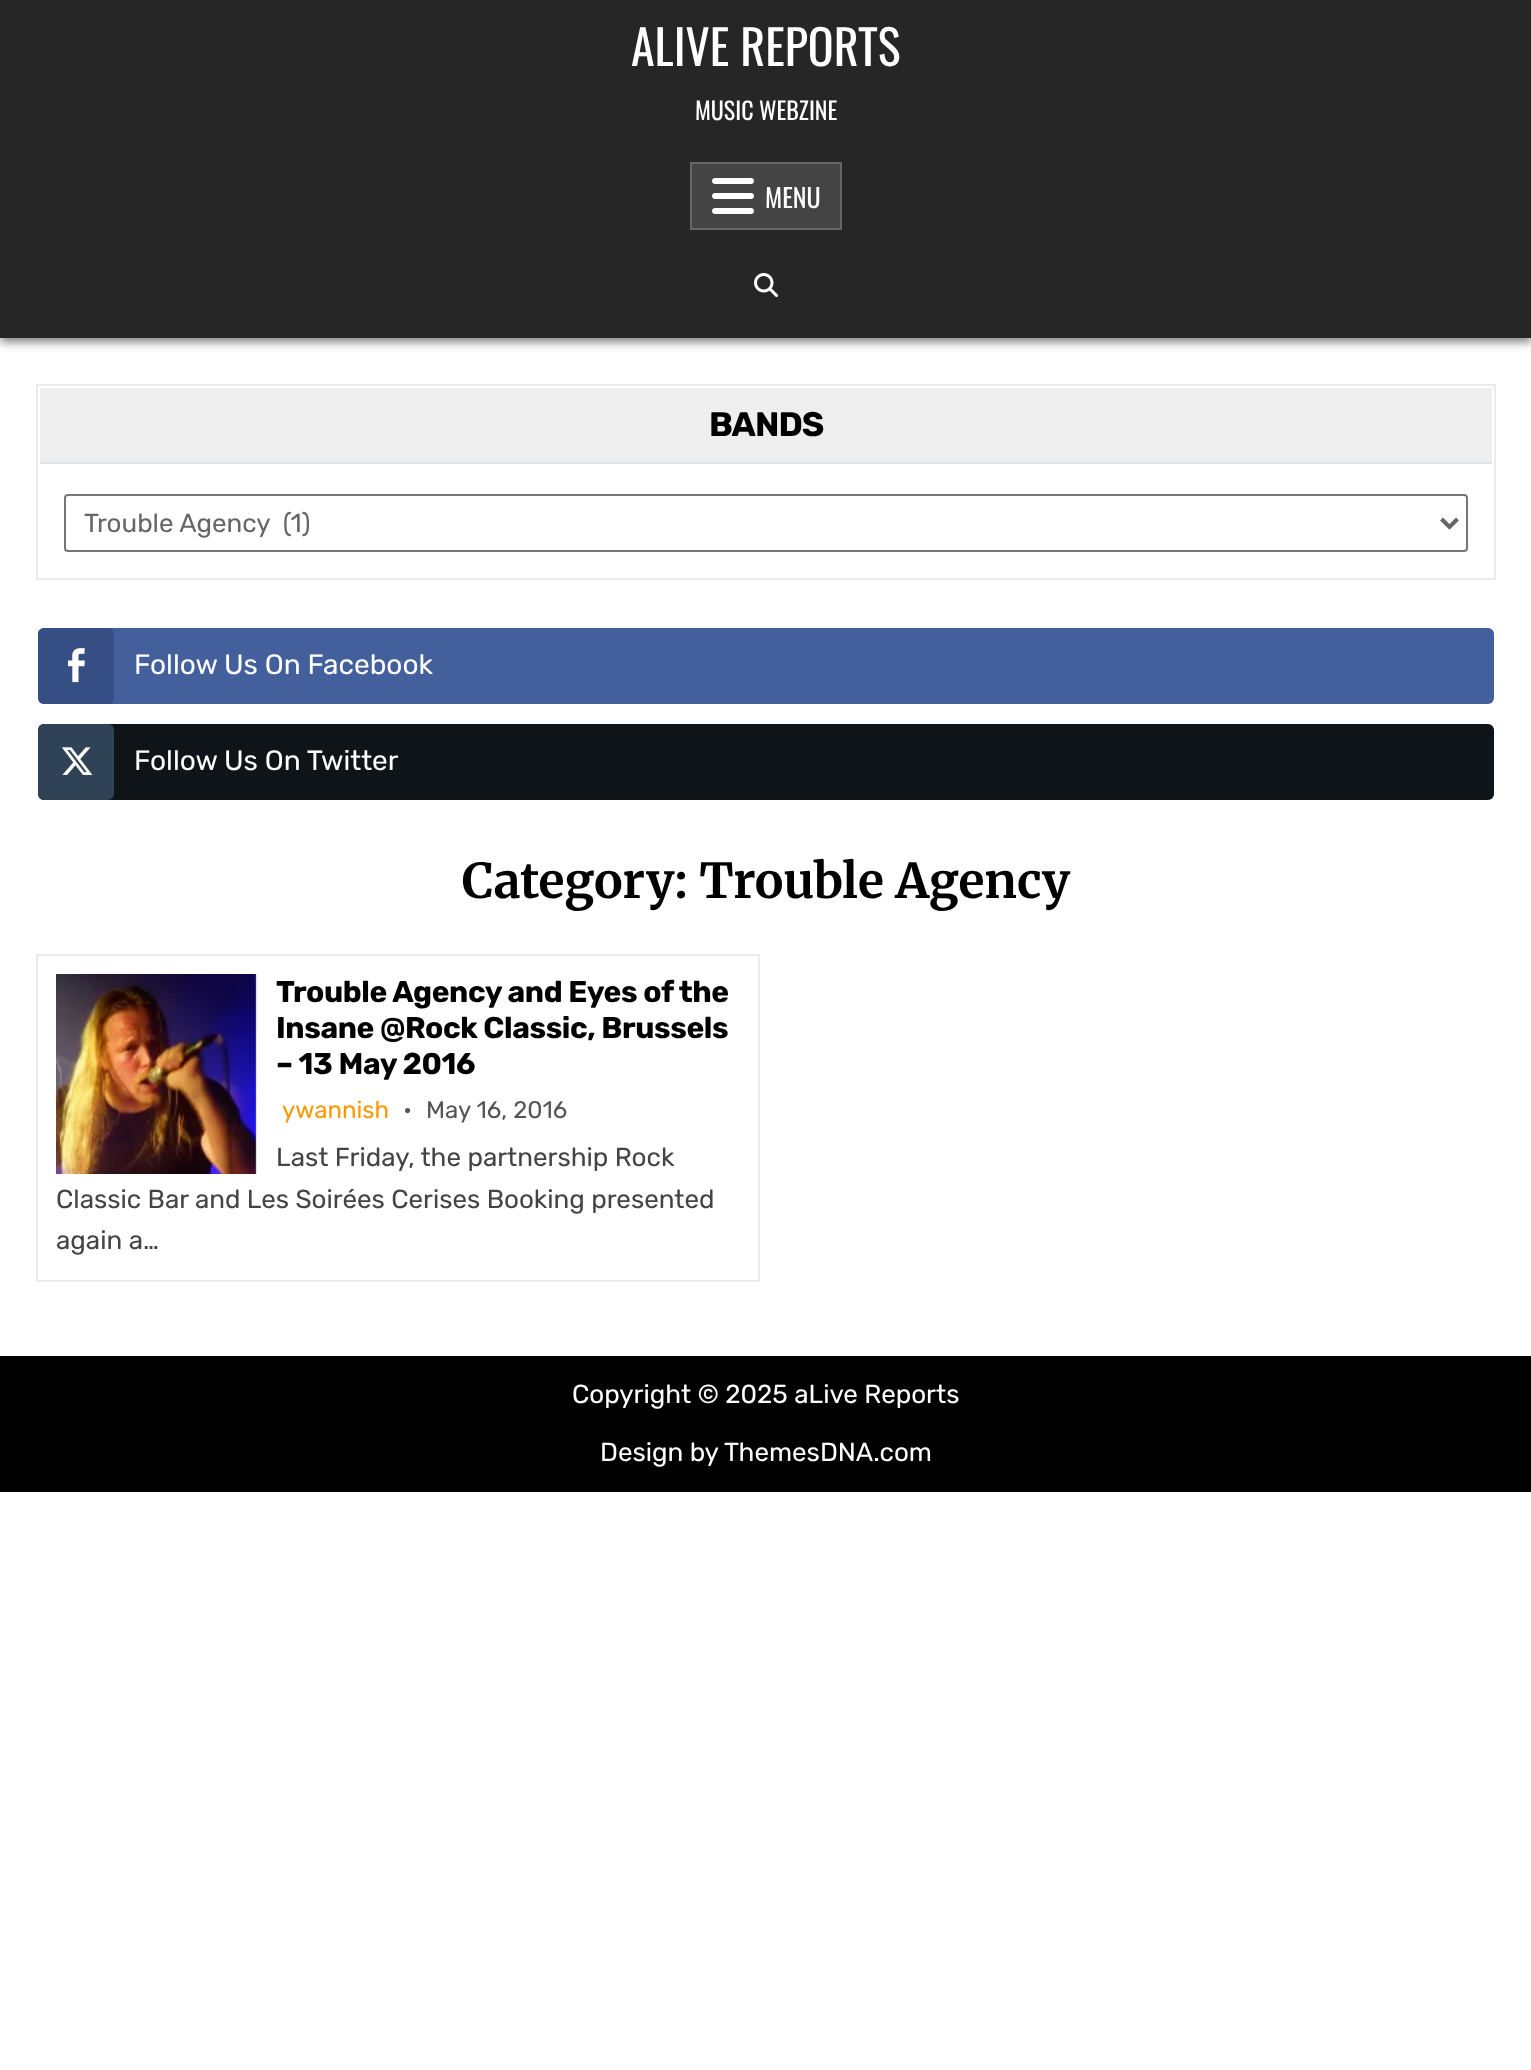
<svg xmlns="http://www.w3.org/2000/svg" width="1531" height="2070">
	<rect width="100%" height="100%" fill="#FFFFFF" />
	<rect x="0" y="4" width="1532" height="338" fill="#000000" fill-opacity="0.5" filter="blur(5px)" />
	<rect x="0" y="0" width="1531" height="338" fill="#262626" />
	<text x="631" y="66" font-family="Oswald" font-size="48" fill="#FFFFFF">ALIVE REPORTS</text>
	<text x="695" y="120" font-family="Oswald" font-size="24" fill="#FFFFFF">MUSIC WEBZINE</text>
	<rect x="691" y="163" width="150" height="66" fill="#444444" stroke="#666666" stroke-width="2" />
	<image x="712" y="178" width="42" height="36" href="assets/img1.png" />
	<text x="765" y="208" font-family="Oswald" font-size="26" fill="#FFFFFF">MENU</text>
	<image x="754" y="273" width="24" height="24" href="assets/img2.png" />
	<rect x="37" y="385" width="1458" height="194" fill="none" stroke="#EBEBEB" stroke-width="2" />
	<rect x="40" y="388" width="1452" height="74" fill="#EEEEEE" />
	<rect x="40" y="462" width="1452" height="2" fill="#DEE2E6" />
	<text x="709" y="436" font-family="Rubik" font-size="34" font-weight="700" letter-spacing="-1" fill="#000000">BANDS</text>
	<rect x="65" y="495" width="1402" height="56" rx="3" fill="none" stroke="#767676" stroke-width="2" />
	<path d="M1441.5 519L1449.5 527L1457.5 519" fill="none" stroke="#666666" stroke-width="4" />
	<text x="84" y="532" font-family="Rubik" font-size="26" fill="#666666" xml:space="preserve">Trouble Agency  (1)</text>
	<rect x="38" y="628" width="1456" height="76" rx="6" fill="#43609C" />
	<rect x="38" y="628" width="76" height="76" rx="6" fill="#354E83" />
	<image x="68" y="648" width="17" height="35" href="assets/img3.png" />
	<text x="134" y="674" font-family="Rubik" font-size="28" fill="#FFFFFF">Follow Us On Facebook</text>
	<rect x="38" y="724" width="1456" height="76" rx="6" fill="#0F1419" />
	<rect x="38" y="724" width="76" height="76" rx="6" fill="#304356" />
	<image x="61" y="747" width="32" height="28" href="assets/img4.png" />
	<text x="134" y="770" font-family="Rubik" font-size="28" fill="#FFFFFF">Follow Us On Twitter</text>
	<text x="462" y="898" font-family="Merriweather" font-size="48" font-weight="700" fill="#000000">Category: Trouble Agency</text>
	<rect x="37" y="955" width="722" height="326" fill="none" stroke="#EBEBEB" stroke-width="2" />
	<image x="56" y="974" width="201" height="200" href="assets/img5.png" />
	<g font-family="Rubik" font-size="30" font-weight="700" letter-spacing="-0.4" fill="#000000">
		<text x="276" y="1002">Trouble Agency and Eyes of the</text>
		<text x="276" y="1038">Insane @Rock Classic, Brussels</text>
		<text x="276" y="1074">– 13 May 2016</text>
	</g>
	<text x="282" y="1118" font-family="Rubik" font-size="24" fill="#FF9800">ywannish</text>
	<g font-family="Rubik" font-size="24" fill="#555555">
		<text x="403" y="1118">•</text>
		<text x="426" y="1118">May 16, 2016</text>
	</g>
	<g font-family="Rubik" font-size="26" fill="#444444">
		<text x="276" y="1166">Last Friday, the partnership Rock</text>
		<text x="56" y="1208">Classic Bar and Les Soirées Cerises Booking presented</text>
		<text x="56" y="1249">again a…</text>
	</g>
	<rect x="0" y="1356" width="1531" height="136" fill="#000000" />
	<g font-family="Rubik" font-size="26" fill="#FFFFFF">
		<text x="572" y="1403">Copyright © 2025 aLive Reports</text>
		<text x="600" y="1461">Design by ThemesDNA.com</text>
	</g>
</svg>
